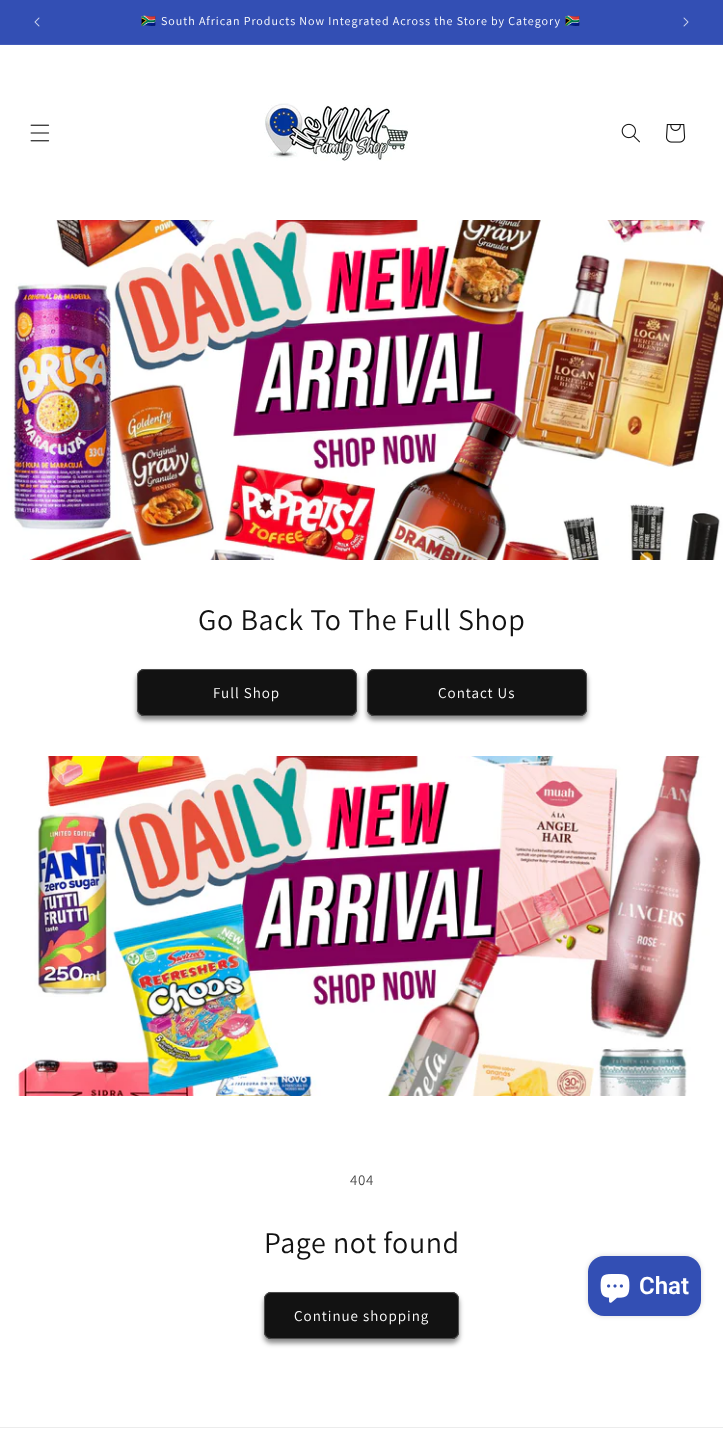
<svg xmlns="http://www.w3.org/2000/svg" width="723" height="1441">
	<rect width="100%" height="100%" fill="#FFFFFF" />
	<rect x="0" y="0" width="723" height="44" fill="#334FB4" />
	<rect x="0" y="44" width="723" height="1" fill="#435DBA" />
	<image x="34" y="17" width="6" height="10" href="assets/img1.png" />
	<text x="141" y="25" font-family="Noto Color Emoji" font-size="12" letter-spacing="1" fill="#FFFFFF">🇿🇦</text>
	<text x="161" y="25" word-spacing="-0.25" font-family="Assistant" font-size="12" letter-spacing="1" fill="#FFFFFF">South African Products Now Integrated Across the Store by Category</text>
	<text x="565" y="25" font-family="Noto Color Emoji" font-size="12" letter-spacing="1" fill="#FFFFFF">🇿🇦</text>
	<image x="683" y="17" width="6" height="10" href="assets/img2.png" />
	<image x="30" y="124" width="20" height="18" href="assets/img3.png" />
	<image x="264" y="103" width="144" height="58" href="assets/img4.png" />
	<image x="621" y="123" width="19" height="20" href="assets/img5.png" />
	<image x="666" y="124" width="20" height="19" href="assets/img6.png" />
	<image x="0" y="220" width="723" height="340" href="assets/img7.png" />
	<text x="198" y="630" font-family="Assistant" font-size="30" letter-spacing="0.6" fill="#121212">Go Back To The Full Shop</text>
	<rect x="137" y="673" width="220" height="47" rx="7" fill="#121212" fill-opacity="0.5" filter="blur(2.5px)" />
	<rect x="137" y="669" width="220" height="47" rx="7" fill="#121212" />
	<rect x="137.5" y="669.5" width="219" height="46" rx="6.5" fill="none" stroke="#121212" />
	<rect x="137.5" y="669.5" width="219" height="46" rx="6.5" fill="none" stroke="#FFFFFF" stroke-opacity="0.25" />
	<text x="213" y="698" font-family="Assistant" font-size="15" letter-spacing="1" fill="#FFFFFF">Full Shop</text>
	<rect x="367" y="673" width="220" height="47" rx="7" fill="#121212" fill-opacity="0.5" filter="blur(2.5px)" />
	<rect x="367" y="669" width="220" height="47" rx="7" fill="#121212" />
	<rect x="367.5" y="669.5" width="219" height="46" rx="6.5" fill="none" stroke="#121212" />
	<rect x="367.5" y="669.5" width="219" height="46" rx="6.5" fill="none" stroke="#FFFFFF" stroke-opacity="0.25" />
	<text x="438" y="698" font-family="Assistant" font-size="15" letter-spacing="1" fill="#FFFFFF">Contact Us</text>
	<image x="0" y="756" width="723" height="340" href="assets/img8.png" />
	<text x="350" y="1185" font-family="Assistant" font-size="15" letter-spacing="0.6" fill="#4D4D4D">404</text>
	<text x="264" y="1253" font-family="Assistant" font-size="30" letter-spacing="0.6" fill="#121212">Page not found</text>
	<rect x="264" y="1296" width="195" height="47" rx="7" fill="#121212" fill-opacity="0.5" filter="blur(2.5px)" />
	<rect x="264" y="1292" width="195" height="47" rx="7" fill="#121212" />
	<rect x="264.5" y="1292.5" width="194" height="46" rx="6.5" fill="none" stroke="#121212" />
	<rect x="264.5" y="1292.5" width="194" height="46" rx="6.5" fill="none" stroke="#FFFFFF" stroke-opacity="0.25" />
	<text x="294" y="1321" font-family="Assistant" font-size="15" letter-spacing="1" fill="#FFFFFF">Continue shopping</text>
	<rect x="588" y="1256" width="113" height="60" rx="16" fill="#000000" fill-opacity="0.15" filter="blur(2.5px)" />
	<rect x="588" y="1256" width="113" height="60" rx="16" fill="#334FB4" />
	<image x="600" y="1274" width="30" height="29" href="assets/img9.png" />
	<text x="639" y="1294" font-family="Roboto" font-size="24" font-weight="600" fill="#FFFFFF">Chat</text>
	<rect x="0" y="1427" width="723" height="1" fill="#ECECEC" />
</svg>
